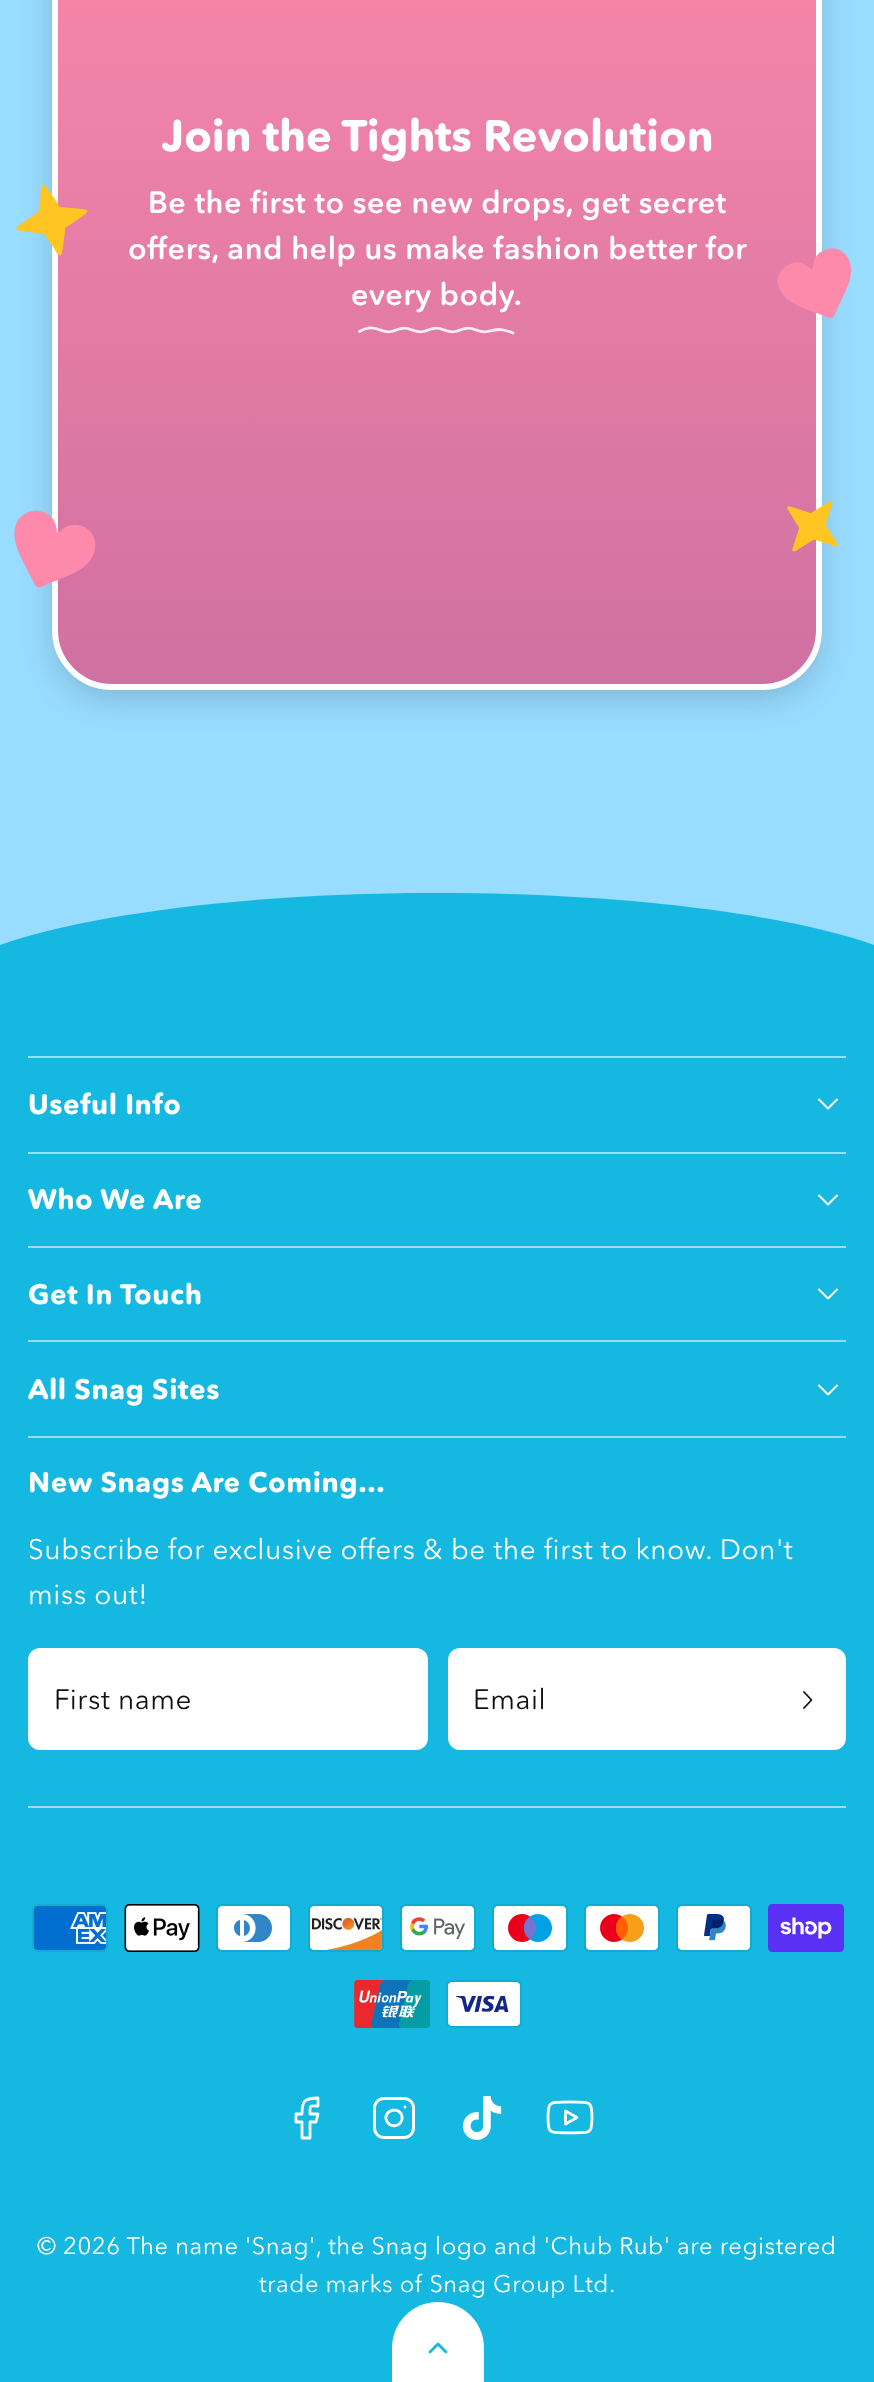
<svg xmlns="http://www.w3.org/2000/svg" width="874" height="2382">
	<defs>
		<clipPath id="clip1"><rect x="52" y="-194" width="770" height="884" rx="60" /></clipPath>
		<linearGradient id="g1" gradientUnits="userSpaceOnUse" x1="437" y1="-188" x2="437" y2="684"><stop offset="0" stop-color="#FE8AAB" /><stop offset="1" stop-color="#CF71A1" /></linearGradient>
	</defs>
	<rect width="100%" height="100%" fill="#98DCFF" />
	<rect x="52" y="-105" width="770" height="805" rx="60" fill="#000000" fill-opacity="0.15" filter="blur(15px)" />
	<g clip-path="url(#clip1)">
		<rect x="52" y="0" width="770" height="684" fill="url(#g1)" />
	</g>
	<rect x="55" y="-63" width="764" height="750" rx="57" fill="none" stroke="#FFFFFF" stroke-width="6" />
	<path d="M41 186L42 185C45 183 49 191 50 192L60 207L82 209C89 210 89 211 83 216L65 228V233C64 236 63 254 61 255C58 257 55 250 54 248L44 234L22 231C15 230 14 229 21 224L31 217C40 211 38 214 40 203Z" fill="#FFC522" />
	<text x="161" y="151" font-family="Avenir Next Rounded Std" font-size="43.75" font-weight="700" fill="#FFFFFF">Join the Tights Revolution</text>
	<g font-family="Avenir Next Rounded Std" font-size="30.6" font-weight="600" letter-spacing="0.55" fill="#FFFFFF">
		<text x="148" y="213">Be the first to see new drops, get secret</text>
		<text x="128" y="259">offers, and help us make fashion better for</text>
		<text x="351" y="305">every body.</text>
	</g>
	<path d="M359.5 331.5C364.5 328.5 370 327 375.5 328.5C381 330 386 333 391.5 331.5C397 330 402 327 407.5 328.5C413 330 418 333 423.5 331.5C429 330 434 327 439.5 328.5C445 330 450 333 455.5 331.5C461 330 466 327 471.5 328.5C477 330 482 333 487.5 331.5C493 330 498 328.5 503.5 330C507 331 510 331.5 513 333" fill="none" stroke="#FBEBF2" stroke-width="2.8" stroke-linecap="round" stroke-linejoin="round" />
	<path d="M825 250C834 246 845 250 849 260C856 277 844 293 834 316C833 318 831 318 829 318C806 308 786 305 779 288C775 279 780 268 790 264C798 260 804 263 811 269C812 269 813 269 813 268C814 259 816 253 825 250Z" fill="#FE8AAB" />
	<path d="M82 526C93 530 98 542 94 553C88 571 66 576 41 587C39 588 36 587 35 585C23 560 10 543 16 524C20 514 32 508 43 512C52 515 56 521 57 532C57 533 58 533 59 532C66 525 73 523 82 526Z" fill="#FE8AAB" />
	<image x="787" y="501" width="51" height="51" href="assets/img1.png" />
	<path d="M874 978V945C786 914 623 893 437 893C251 893 88 914 0 945V978Z" fill="#14B8E1" />
	<rect x="0" y="978" width="874" height="1404" fill="#14B8E1" />
	<rect x="28" y="1056" width="818" height="2" fill="#98DCFF" />
	<text x="28" y="1114" font-family="Avenir Next Rounded Std" font-size="28" font-weight="700" letter-spacing="0.55" fill="#FFFFFF">Useful Info</text>
	<path d="M819 1099.5L828 1108.5L837 1099.5" fill="none" stroke="#FFFFFF" stroke-width="2.1" stroke-linecap="round" stroke-linejoin="round" />
	<rect x="28" y="1152" width="818" height="2" fill="#98DCFF" />
	<text x="28" y="1209" font-family="Avenir Next Rounded Std" font-size="28" font-weight="700" letter-spacing="0.55" fill="#FFFFFF">Who We Are</text>
	<path d="M819 1195.5L828 1204.5L837 1195.5" fill="none" stroke="#FFFFFF" stroke-width="2.1" stroke-linecap="round" stroke-linejoin="round" />
	<rect x="28" y="1246" width="818" height="2" fill="#98DCFF" />
	<text x="28" y="1304" font-family="Avenir Next Rounded Std" font-size="28" font-weight="700" letter-spacing="0.55" fill="#FFFFFF">Get In Touch</text>
	<path d="M819 1289.5L828 1298.5L837 1289.5" fill="none" stroke="#FFFFFF" stroke-width="2.1" stroke-linecap="round" stroke-linejoin="round" />
	<rect x="28" y="1340" width="818" height="2" fill="#98DCFF" />
	<text x="28" y="1399" font-family="Avenir Next Rounded Std" font-size="28" font-weight="700" letter-spacing="0.55" fill="#FFFFFF">All Snag Sites</text>
	<path d="M819 1385.5L828 1394.5L837 1385.5" fill="none" stroke="#FFFFFF" stroke-width="2.1" stroke-linecap="round" stroke-linejoin="round" />
	<rect x="28" y="1436" width="818" height="2" fill="#98DCFF" />
	<text x="28" y="1492" font-family="Avenir Next Rounded Std" font-size="28" font-weight="700" letter-spacing="0.55" fill="#FFFFFF">New Snags Are Coming...</text>
	<g font-family="Avenir Next Rounded Std" font-size="28" letter-spacing="0.55" fill="#FFFFFF">
		<text x="28" y="1559">Subscribe for exclusive offers &amp; be the first to know. Don't</text>
		<text x="28" y="1604">miss out!</text>
	</g>
	<rect x="28" y="1648" width="400" height="102" rx="12" fill="#FFFFFF" />
	<text x="54" y="1709" font-family="Avenir Next Rounded Std" font-size="28" letter-spacing="0.55" fill="#111111">First name</text>
	<rect x="448" y="1648" width="398" height="102" rx="12" fill="#FFFFFF" />
	<text x="473" y="1709" font-family="Avenir Next Rounded Std" font-size="28" letter-spacing="0.55" fill="#111111">Email</text>
	<path d="M804 1708L811.5 1700L804 1692" fill="none" stroke="#111111" stroke-width="1.8" stroke-linecap="round" stroke-linejoin="round" />
	<rect x="28" y="1806" width="818" height="2" fill="#98DCFF" />
	<image x="32" y="1904" width="76" height="48" href="assets/img2.png" />
	<image x="124" y="1904" width="76" height="48" href="assets/img3.png" />
	<image x="216" y="1904" width="76" height="48" href="assets/img4.png" />
	<image x="308" y="1904" width="76" height="48" href="assets/img5.png" />
	<image x="400" y="1904" width="76" height="48" href="assets/img6.png" />
	<image x="492" y="1904" width="76" height="48" href="assets/img7.png" />
	<image x="584" y="1904" width="76" height="48" href="assets/img8.png" />
	<image x="676" y="1904" width="76" height="48" href="assets/img9.png" />
	<image x="768" y="1904" width="76" height="48" href="assets/img10.png" />
	<image x="354" y="1980" width="76" height="48" href="assets/img11.png" />
	<image x="446" y="1980" width="76" height="48" href="assets/img12.png" />
	<path d="M318 2098C304.5 2098 302 2100.5 302 2114H296V2122H302V2138H310V2122H316L318 2114H310C310 2105 309 2106 318 2106Z" fill="none" stroke="#FFFFFF" stroke-width="2.8" stroke-linecap="round" stroke-linejoin="round" />
	<rect x="374.5" y="2098.5" width="39" height="39" rx="9.5" fill="none" stroke="#FFFFFF" stroke-width="3" />
	<path d="M402 2116.5C403.5 2127 388 2129.5 386 2119C384.5 2109 400.5 2106.5 402 2116.5ZM405 2107H405" fill="none" stroke="#FFFFFF" stroke-width="2.8" stroke-linecap="round" stroke-linejoin="round" />
	<image x="462" y="2096" width="40" height="44" href="assets/img13.png" />
	<image x="546" y="2100" width="48" height="35" href="assets/img14.png" />
	<g font-family="Avenir Next Rounded Std" font-size="23.8" letter-spacing="0.55" fill="#FFFFFF">
		<text x="37" y="2254">© 2026 The name 'Snag', the Snag logo and 'Chub Rub' are registered</text>
		<text x="259" y="2292">trade marks of Snag Group Ltd.</text>
	</g>
	<path d="M438 2302C463.5 2302 484 2322.5 484 2348V2382H392V2348C392 2322.5 412.5 2302 438 2302Z" fill="#FFFFFF" />
	<path d="M446 2352L438 2344L430 2352" fill="none" stroke="#14B8E1" stroke-width="2.8" stroke-linecap="round" stroke-linejoin="round" />
</svg>
